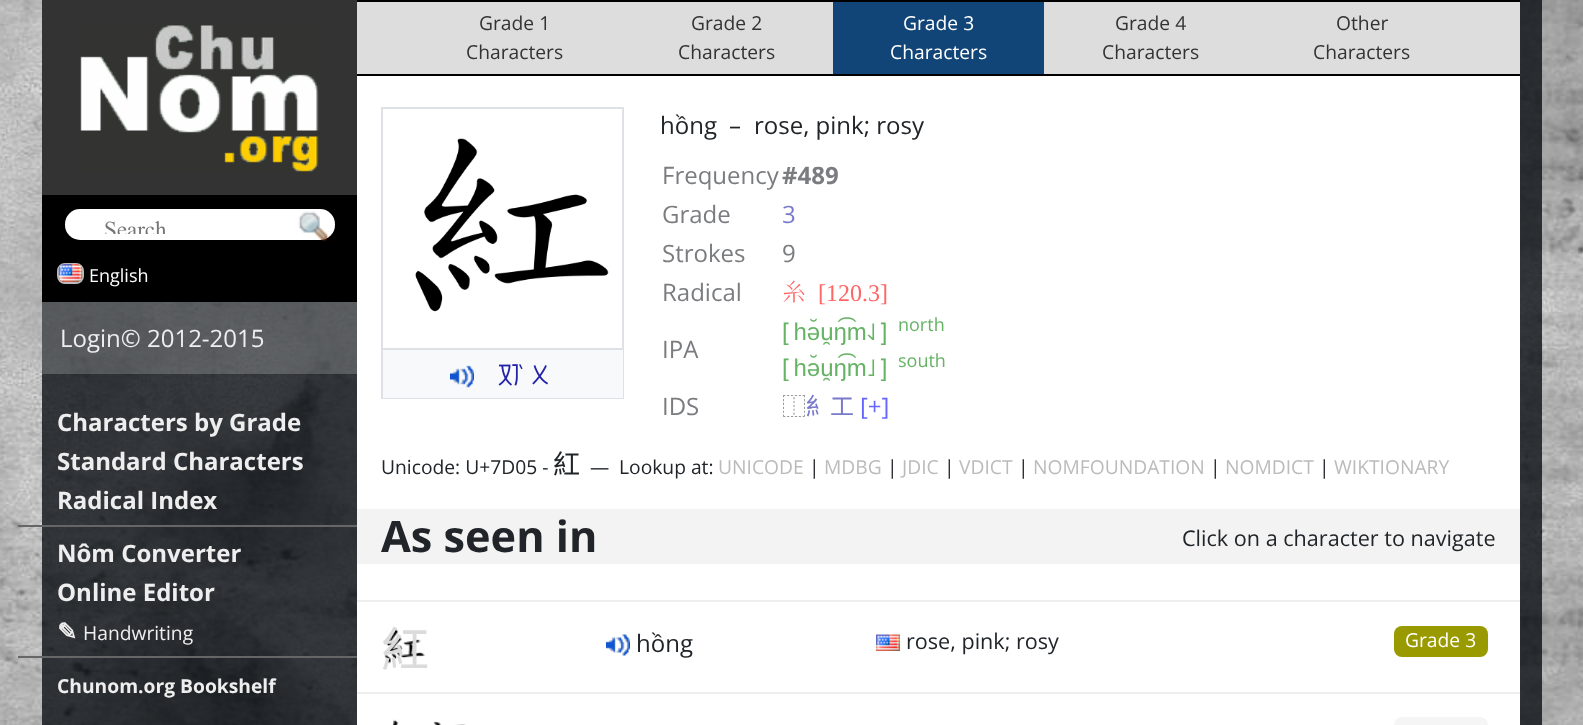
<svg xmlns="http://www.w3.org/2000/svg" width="1583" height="725">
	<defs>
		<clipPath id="clip1"><rect x="105" y="218" width="222" height="16" /></clipPath>
	</defs>
	<rect width="100%" height="100%" fill="#FFFFFF" />
	<image x="0" y="0" width="1583" height="725" href="assets/img1.png" />
	<rect x="42" y="0" width="315" height="195" fill="#333333" />
	<image x="80" y="25" width="239" height="147" href="assets/img2.png" />
	<rect x="42" y="195" width="315" height="107" fill="#000000" />
	<rect x="65" y="209" width="270" height="31" rx="15" fill="#FFFFFF" />
	<g clip-path="url(#clip1)">
		<text x="104" y="237" font-family="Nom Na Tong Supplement" font-size="23" fill="#757575">Search</text>
	</g>
	<image x="298" y="211" width="31" height="31" href="assets/img3.png" />
	<rect x="58" y="264" width="25" height="19" rx="7" fill="none" stroke="#BBBBBB" stroke-width="2" />
	<image x="58" y="264" width="25" height="18" href="assets/img4.png" />
	<text x="89" y="282" font-family="Open Sans" font-size="18" fill="#FFFFFF">English</text>
	<rect x="42" y="302" width="315" height="72" fill="#FFFFFF" fill-opacity="0.2" />
	<text x="60" y="347" font-family="Open Sans" font-size="24" fill="#EEEEEE">Login© 2012-2015</text>
	<g font-family="Open Sans" font-size="24" font-weight="700" fill="#EEEEEE">
		<text x="57" y="431">Characters by Grade</text>
		<text x="57" y="470">Standard Characters</text>
		<text x="57" y="509">Radical Index</text>
	</g>
	<rect x="18" y="525" width="339" height="2" fill="#666666" />
	<g font-family="Open Sans" font-size="24" font-weight="700" fill="#EEEEEE">
		<text x="57" y="562">Nôm Converter</text>
		<text x="57" y="601">Online Editor</text>
	</g>
	<text x="57" y="640" font-family="DejaVu Sans" font-size="24" font-weight="700" fill="#EEEEEE">✎</text>
	<text x="83" y="640" font-family="Open Sans" font-size="19.25" fill="#EEEEEE">Handwriting</text>
	<rect x="18" y="656" width="339" height="2" fill="#666666" />
	<text x="57" y="693" font-family="Open Sans" font-size="19.25" font-weight="700" fill="#EEEEEE">Chunom.org Bookshelf</text>
	<rect x="357" y="76" width="1163" height="649" fill="#FFFFFF" />
	<rect x="357" y="2" width="1163" height="72" fill="#DDDDDD" />
	<rect x="357" y="0" width="1163" height="2" fill="#000000" />
	<rect x="357" y="74" width="1163" height="2" fill="#000000" />
	<g font-family="Open Sans" font-size="19.25" fill="#333333">
		<text x="479" y="30">Grade 1</text>
		<text x="466" y="59">Characters</text>
		<text x="691" y="30">Grade 2</text>
		<text x="678" y="59">Characters</text>
	</g>
	<rect x="833" y="2" width="211" height="72" fill="#114477" />
	<g font-family="Open Sans" font-size="19.25" fill="#FFFFFF">
		<text x="903" y="30">Grade 3</text>
		<text x="890" y="59">Characters</text>
	</g>
	<g font-family="Open Sans" font-size="19.25" fill="#333333">
		<text x="1115" y="30">Grade 4</text>
		<text x="1102" y="59">Characters</text>
		<text x="1336" y="30">Other</text>
		<text x="1313" y="59">Characters</text>
	</g>
	<rect x="382" y="108" width="241" height="290" fill="none" stroke="#DEE2E6" stroke-width="2" />
	<image x="415" y="138" width="194" height="174" href="assets/img5.png" />
	<rect x="383" y="350" width="240" height="48" fill="#F8F9FA" />
	<rect x="383" y="348" width="240" height="2" fill="#DEE2E6" />
	<image x="450" y="365" width="24" height="23" href="assets/img6.png" />
	<image x="498" y="364" width="25" height="22" href="assets/img7.png" />
	<image x="532" y="365" width="16" height="20" href="assets/img8.png" />
	<g font-family="Open Sans" font-size="24" fill="#212529">
		<text x="660" y="134">hồng</text>
		<text x="729" y="134">–</text>
		<text x="754" y="134">rose, pink; rosy</text>
	</g>
	<text x="662" y="184" font-family="Open Sans" font-size="24" fill="#7A7C7F">Frequency</text>
	<text x="782" y="184" font-family="Open Sans" font-size="24" font-weight="700" fill="#7A7C7F">#489</text>
	<text x="662" y="223" font-family="Open Sans" font-size="24" fill="#7A7C7F">Grade</text>
	<text x="782" y="223" font-family="Open Sans" font-size="24" fill="#7A7ACC">3</text>
	<g font-family="Open Sans" font-size="24" fill="#7A7C7F">
		<text x="662" y="262">Strokes</text>
		<text x="782" y="262">9</text>
		<text x="662" y="301">Radical</text>
	</g>
	<text x="782" y="301" font-family="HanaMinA" font-size="24" font-weight="500" fill="#FF6666">⽷</text>
	<text x="818" y="301" font-family="Liberation Serif" font-size="24" fill="#FF6666">[120.3]</text>
	<text x="662" y="358" font-family="Open Sans" font-size="24" fill="#7A7C7F">IPA</text>
	<text x="782" y="340" font-family="Liberation Sans" font-size="24" fill="#66B366">[ hə̆u̯ŋ͡m˨˩ ]</text>
	<text x="898" y="331" font-family="Open Sans" font-size="18" fill="#66B366">north</text>
	<text x="782" y="376" font-family="Liberation Sans" font-size="24" fill="#66B366">[ hə̆u̯ŋ͡m˩ ]</text>
	<text x="898" y="367" font-family="Open Sans" font-size="18" fill="#66B366">south</text>
	<text x="662" y="415" font-family="Open Sans" font-size="24" fill="#7A7C7F">IDS</text>
	<text x="782" y="415" font-family="Noto Sans CJK SC" font-size="24" fill="#7A7C7F">⿰</text>
	<text x="806" y="415" font-family="Noto Sans CJK SC" font-size="24" fill="#7A7ACC">糹工</text>
	<text x="860" y="415" font-family="Open Sans" font-size="24" fill="#6666FF">[+]</text>
	<text x="381" y="474" font-family="Open Sans" font-size="19.25" fill="#212529">Unicode: U+7D05 -</text>
	<text x="553" y="474" font-family="Noto Sans CJK SC" font-size="27" fill="#212529">紅</text>
	<g font-family="Open Sans" font-size="19.25" fill="#212529">
		<text x="590" y="474">—</text>
		<text x="619" y="474">Lookup at:</text>
	</g>
	<text x="718" y="474" font-family="Open Sans" font-size="19.25" fill="#BBBBBB">UNICODE</text>
	<text x="809" y="474" font-family="Open Sans" font-size="19.25" fill="#212529">|</text>
	<text x="824" y="474" font-family="Open Sans" font-size="19.25" fill="#BBBBBB">MDBG</text>
	<text x="887" y="474" font-family="Open Sans" font-size="19.25" fill="#212529">|</text>
	<text x="902" y="474" font-family="Open Sans" font-size="19.25" fill="#BBBBBB">JDIC</text>
	<text x="944" y="474" font-family="Open Sans" font-size="19.25" fill="#212529">|</text>
	<text x="959" y="474" font-family="Open Sans" font-size="19.25" fill="#BBBBBB">VDICT</text>
	<text x="1018" y="474" font-family="Open Sans" font-size="19.25" fill="#212529">|</text>
	<text x="1033" y="474" font-family="Open Sans" font-size="19.25" fill="#BBBBBB">NOMFOUNDATION</text>
	<text x="1210" y="474" font-family="Open Sans" font-size="19.25" fill="#212529">|</text>
	<text x="1225" y="474" font-family="Open Sans" font-size="19.25" fill="#BBBBBB">NOMDICT</text>
	<text x="1319" y="474" font-family="Open Sans" font-size="19.25" fill="#212529">|</text>
	<text x="1334" y="474" font-family="Open Sans" font-size="19.25" fill="#BBBBBB">WIKTIONARY</text>
	<rect x="357" y="509" width="1163" height="55" fill="#F3F3F3" />
	<text x="381" y="552" font-family="Open Sans" font-size="43.25" font-weight="700" fill="#212529">As seen in</text>
	<text x="1182" y="546" font-family="Open Sans" font-size="21.6" fill="#212529">Click on a character to navigate</text>
	<rect x="357" y="600" width="1163" height="2" fill="#EEEEEE" />
	<image x="384" y="628" width="41" height="36" href="assets/img9.png" />
	<text x="381" y="667" font-family="Noto Sans CJK SC" font-size="48" fill="#DBDBDB">紅</text>
	<image x="606" y="634" width="24" height="22" href="assets/img10.png" />
	<text x="636" y="652" font-family="Open Sans" font-size="24" fill="#212529">hồng</text>
	<image x="876" y="634" width="24" height="17" href="assets/img11.png" />
	<text x="906" y="649" font-family="Open Sans" font-size="21.6" fill="#212529">rose, pink; rosy</text>
	<rect x="1394" y="626" width="94" height="31" rx="8" fill="#999900" />
	<text x="1405" y="647" font-family="Open Sans" font-size="19.25" fill="#FFFFFF">Grade 3</text>
	<rect x="357" y="692" width="1163" height="2" fill="#EEEEEE" />
	<image x="392" y="719" width="7" height="6" href="assets/img12.png" />
	<image x="433" y="721" width="33" height="4" href="assets/img13.png" />
	<rect x="1394" y="717" width="94" height="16" rx="8" fill="#F5F5F5" />
</svg>
